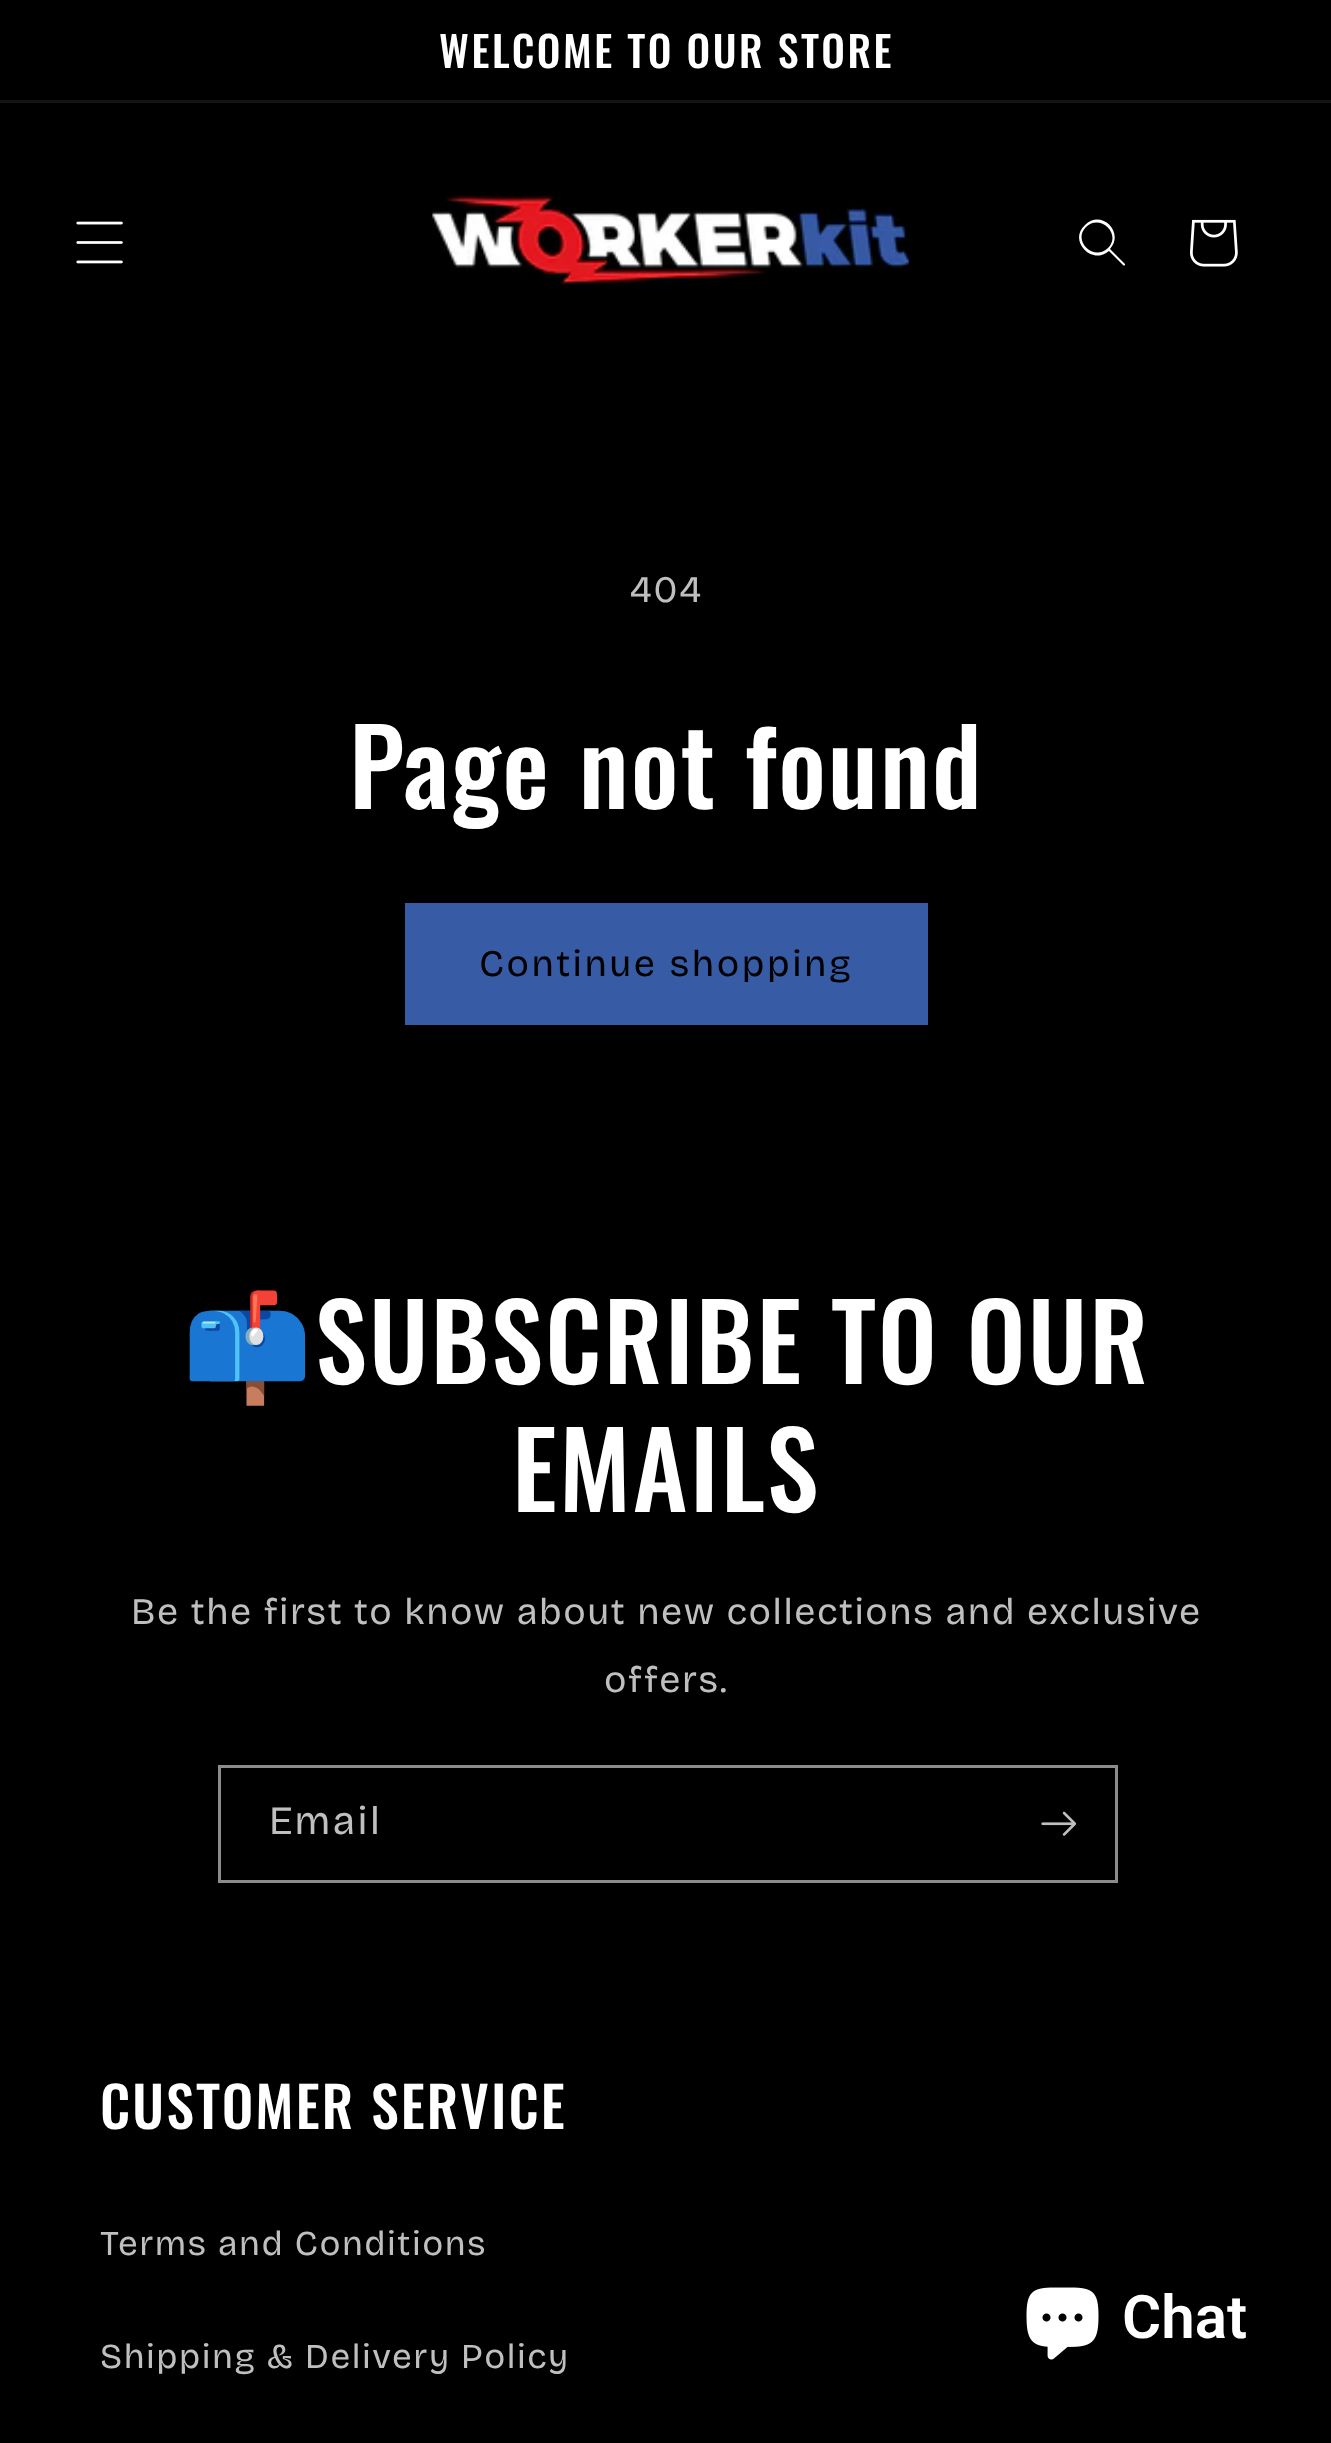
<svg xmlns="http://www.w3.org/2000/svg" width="1331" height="2443">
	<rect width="100%" height="100%" fill="#000000" />
	<rect x="0" y="100" width="1331" height="3" fill="#141414" />
	<text x="439" y="68" font-family="Oswald" font-size="42" font-weight="500" letter-spacing="2.5" fill="#FFFFFF">WELCOME TO OUR STORE</text>
	<image x="76" y="221" width="47" height="43" href="assets/img1.png" />
	<image x="431" y="194" width="480" height="93" href="assets/img2.png" />
	<path d="M1108 248C1094 262 1072 241 1086 227C1100 213 1122 234 1108 248M1109 251C1091 266 1068 240 1085 225C1101 209 1125 232 1110 249L1125 264C1125 266 1124 266 1123 265Z" fill="#FFFFFF" fill-rule="evenodd" />
	<image x="1190" y="219" width="48" height="48" href="assets/img3.png" />
	<text x="630" y="602" font-family="Bricolage Grotesque" font-size="37.5" letter-spacing="1.5" fill="#BFBFBF">404</text>
	<text x="349" y="809" font-family="Oswald" font-size="105" font-weight="500" letter-spacing="2.1" fill="#FFFFFF">Page not found</text>
	<rect x="405" y="903" width="523" height="122" fill="#385BA6" />
	<text x="479" y="976" font-family="Bricolage Grotesque" font-size="37.5" letter-spacing="2.5" fill="#000000">Continue shopping</text>
	<text x="182" y="1384" font-family="Noto Color Emoji" font-size="105" letter-spacing="2.1" fill="#FFFFFF">📫</text>
	<g font-family="Oswald" font-size="105" font-weight="500" letter-spacing="2.1" fill="#FFFFFF">
		<text x="315" y="1384">SUBSCRIBE TO OUR</text>
		<text x="512" y="1512">EMAILS</text>
	</g>
	<g font-family="Bricolage Grotesque" font-size="37.5" letter-spacing="1.5" fill="#BFBFBF">
		<text x="131" y="1624">Be the first to know about new collections and exclusive</text>
		<text x="604" y="1692">offers.</text>
	</g>
	<rect x="219.5" y="1766.5" width="897" height="115" fill="none" stroke="#8C8C8C" stroke-width="3" />
	<text x="269" y="1834" font-family="'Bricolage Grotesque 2'" font-size="40" letter-spacing="2.5" fill="#BFBFBF">Email</text>
	<image x="1041" y="1811" width="36" height="25" href="assets/img4.png" />
	<text x="100" y="2129" font-family="Oswald" font-size="56" font-weight="500" letter-spacing="2.1" fill="#FFFFFF">CUSTOMER SERVICE</text>
	<g font-family="'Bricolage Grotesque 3'" font-size="35" letter-spacing="1.5" fill="#BFBFBF">
		<text x="100" y="2255">Terms and Conditions</text>
		<text x="100" y="2368">Shipping &amp; Delivery Policy</text>
	</g>
	<image x="1026" y="2287" width="73" height="73" href="assets/img5.png" />
	<text x="1122" y="2338" font-family="Roboto" font-size="60" font-weight="600" fill="#FFFFFF">Chat</text>
</svg>
